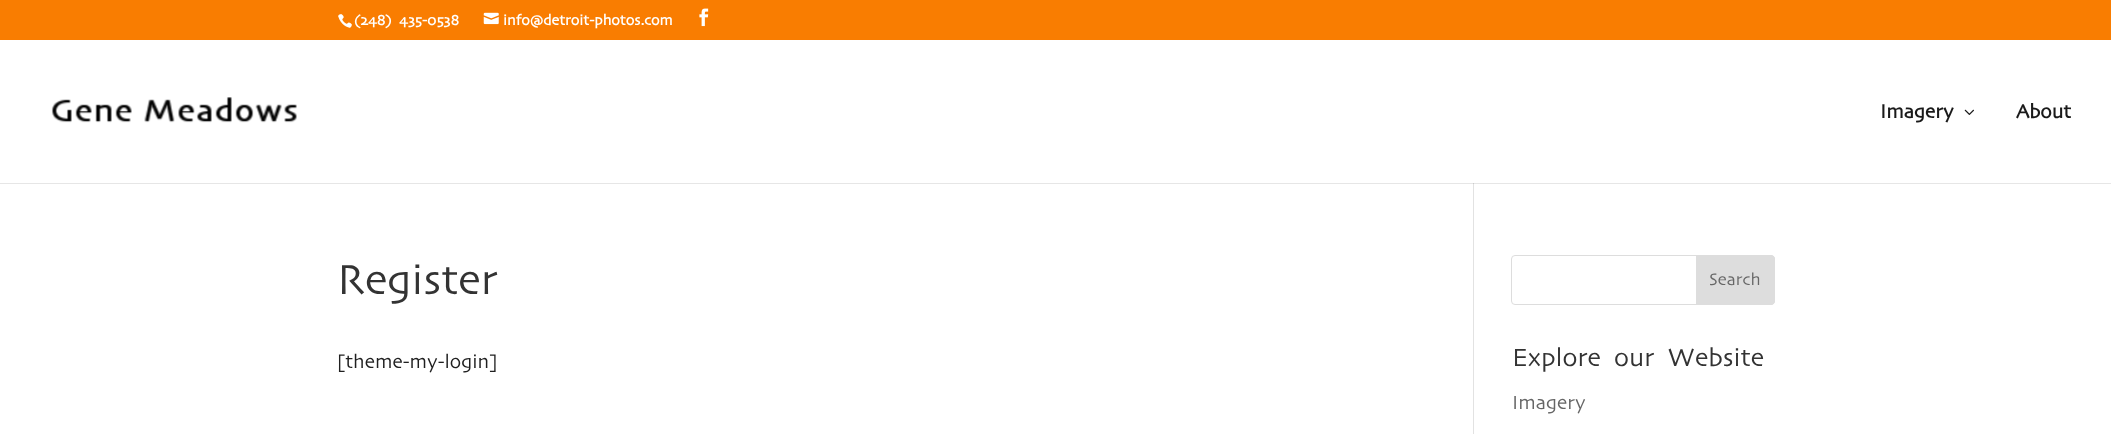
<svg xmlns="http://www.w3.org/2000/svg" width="2111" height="434">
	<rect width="100%" height="100%" fill="#FFFFFF" />
	<rect x="0" y="183" width="2111" height="1" fill="#E6E6E6" />
	<rect x="0" y="0" width="2111" height="40" fill="#F97D01" />
	<image x="338" y="14" width="14" height="14" href="assets/img1.png" />
	<text x="354" y="25" font-family="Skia" font-size="15" font-weight="700" fill="#FFFFFF">(248) 435-0538</text>
	<image x="483" y="12" width="16" height="13" href="assets/img2.png" />
	<text x="503" y="25" font-family="Skia" font-size="15" font-weight="700" fill="#FFFFFF">info@detroit-photos.com</text>
	<image x="699" y="8" width="10" height="19" href="assets/img3.png" />
	<image x="51" y="97" width="246" height="26" href="assets/img4.png" />
	<text x="1880" y="118" font-family="Skia" font-size="20" font-weight="700" fill="#1A1A1A">Imagery</text>
	<image x="1964" y="109" width="10" height="6" href="assets/img5.png" />
	<text x="2016" y="118" font-family="Skia" font-size="20" font-weight="700" fill="#1A1A1A">About</text>
	<rect x="1473" y="183" width="1" height="251" fill="#E2E2E2" />
	<rect x="1473" y="183" width="1" height="1" fill="#CBCBCB" />
	<text x="337" y="294" font-family="Skia" font-size="44" fill="#333333">Register</text>
	<text x="337" y="368" font-family="Skia" font-size="20" fill="#202020">[theme-my-login]</text>
	<rect x="1511.5" y="255.5" width="263" height="49" rx="3.5" fill="none" stroke="#DDDDDD" />
	<path d="M1696.5 255.5H1771C1773 255.5 1774.5 257 1774.5 259V301C1774.5 303 1773 304.5 1771 304.5H1696.5Z" fill="#DDDDDD" stroke="#DDDDDD" />
	<text x="1709" y="285" font-family="Skia" font-size="17.5" fill="#666666">Search</text>
	<text x="1512" y="366" font-family="Skia" font-size="26.25" fill="#333333">Explore our Website</text>
	<text x="1512" y="409" font-family="Skia" font-size="20" fill="#666666">Imagery</text>
</svg>
